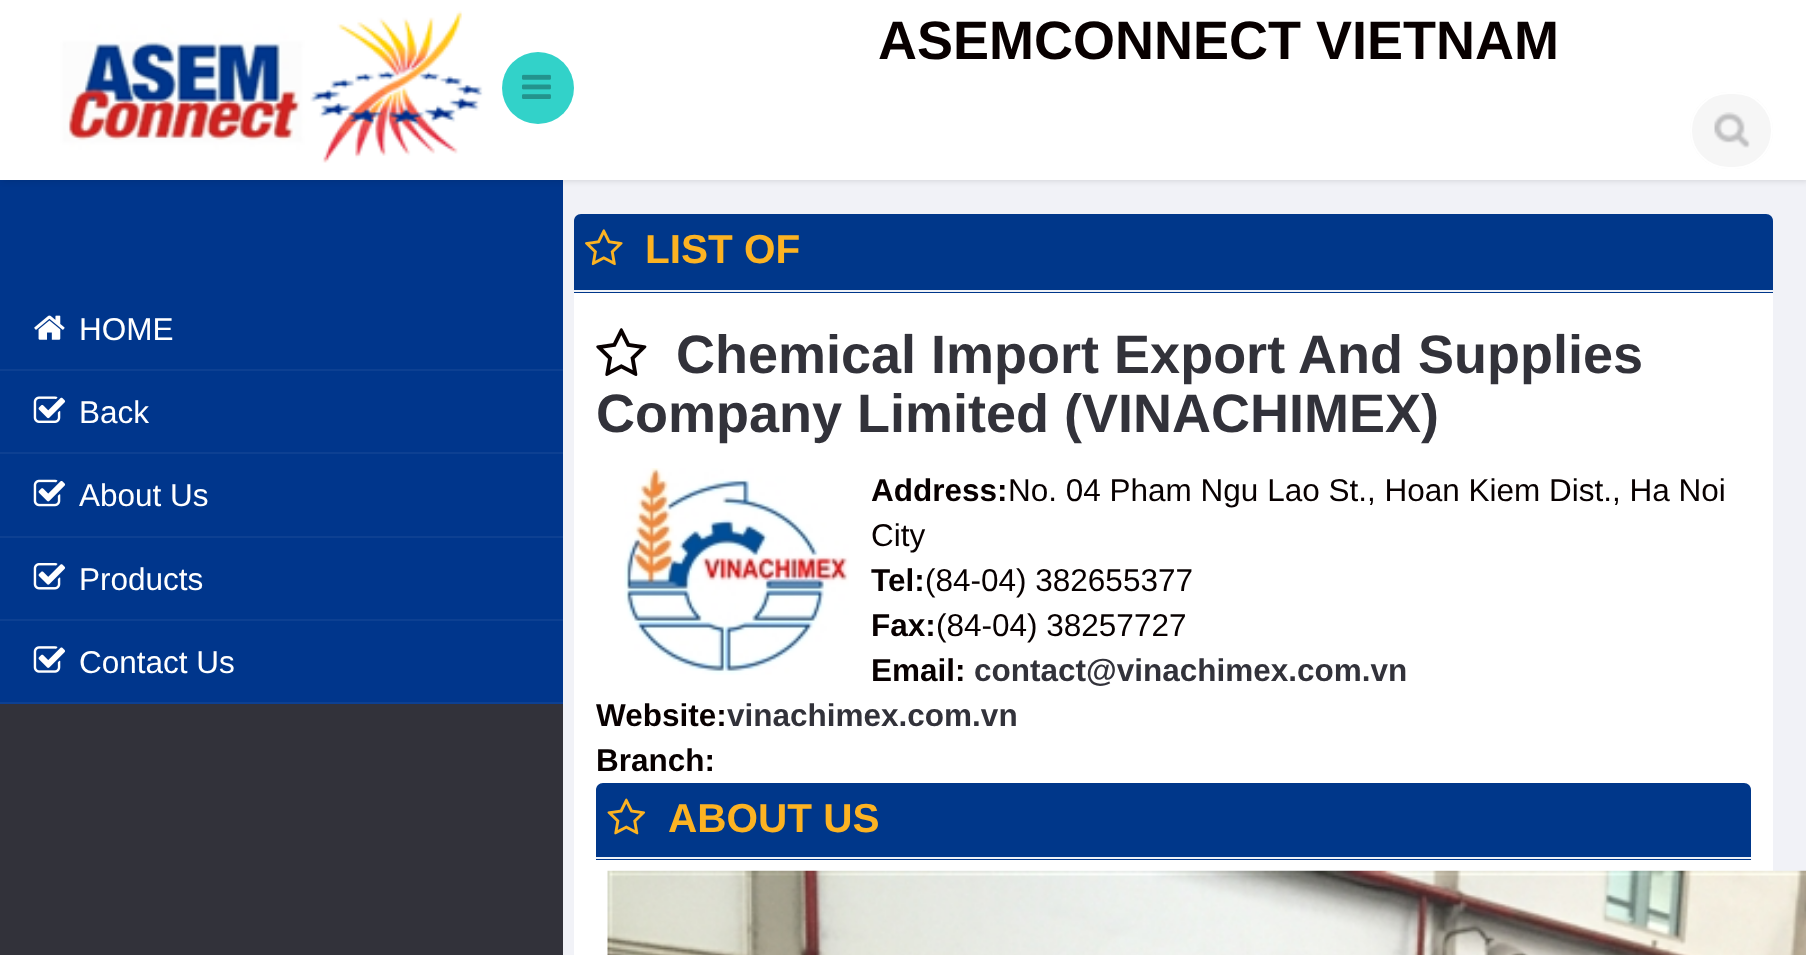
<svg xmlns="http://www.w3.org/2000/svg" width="1806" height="955">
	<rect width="100%" height="100%" fill="#F1F2F7" />
	<rect x="0" y="180" width="563" height="522" fill="#00368C" />
	<rect x="2" y="0" width="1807" height="180" fill="#000000" fill-opacity="0.15" filter="blur(3.5px)" />
	<rect x="540" y="0" width="1266" height="180" fill="#FFFFFF" />
	<image x="0" y="0" width="540" height="180" href="assets/img1.png" />
	<circle cx="538" cy="88" r="36" fill="#32D2C9" />
	<image x="522" y="74" width="29" height="25" href="assets/img2.png" />
	<text x="878" y="59" font-family="Liberation Sans" font-size="54" font-weight="700" fill="#080000">ASEMCONNECT VIETNAM</text>
	<rect x="1690" y="92" width="83" height="77" rx="38.5" fill="#F6F6F6" />
	<image x="1714" y="112" width="36" height="36" href="assets/img3.png" />
	<rect x="1691" y="93" width="81" height="75" rx="37.5" fill="none" stroke="#FFFFFF" stroke-width="2" />
	<rect x="0" y="704" width="563" height="251" fill="#32323A" />
	<rect x="0" y="369" width="563" height="2" fill="#0D4092" />
	<image x="34" y="315" width="31" height="25" href="assets/img4.png" />
	<text x="79" y="340" font-family="Liberation Sans" font-size="31.5" fill="#FFFFFF">HOME</text>
	<rect x="0" y="452" width="563" height="2" fill="#0D4092" />
	<image x="33" y="396" width="33" height="27" href="assets/img5.png" />
	<text x="79" y="423" font-family="Liberation Sans" font-size="31.5" fill="#FFFFFF">Back</text>
	<rect x="0" y="536" width="563" height="2" fill="#0D4092" />
	<image x="33" y="479" width="33" height="28" href="assets/img6.png" />
	<text x="79" y="506" font-family="Liberation Sans" font-size="31.5" fill="#FFFFFF">About Us</text>
	<rect x="0" y="619" width="563" height="2" fill="#0D4092" />
	<image x="33" y="563" width="33" height="27" href="assets/img7.png" />
	<text x="79" y="590" font-family="Liberation Sans" font-size="31.5" fill="#FFFFFF">Products</text>
	<rect x="0" y="702" width="563" height="2" fill="#0D4092" />
	<image x="33" y="646" width="32" height="27" href="assets/img8.png" />
	<text x="79" y="673" font-family="Liberation Sans" font-size="31.5" fill="#FFFFFF">Contact Us</text>
	<rect x="574" y="214" width="1199" height="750" rx="9" fill="#FFFFFF" />
	<path d="M581 214H1766C1770 214 1773 217 1773 221V293H574V221C574 217 577 214 581 214Z" fill="#00378A" />
	<rect x="574" y="290" width="1199" height="2" fill="#EFF2F7" />
	<image x="585" y="229" width="38" height="37" href="assets/img9.png" />
	<text x="645" y="263" font-family="Liberation Sans" font-size="40.5" font-weight="700" fill="#FCB322">LIST OF</text>
	<image x="596" y="328" width="51" height="48" href="assets/img10.png" />
	<g font-family="Liberation Sans" font-size="54" font-weight="700" fill="#32323A">
		<text x="676" y="373">Chemical Import Export And Supplies</text>
		<text x="596" y="432">Company Limited (VINACHIMEX)</text>
	</g>
	<image x="624" y="468" width="225" height="207" href="assets/img11.png" />
	<text x="871" y="501" font-family="Liberation Sans" font-size="31.5" font-weight="700" fill="#080000">Address:</text>
	<g font-family="Liberation Sans" font-size="31.5" fill="#080000">
		<text x="1008" y="501">No. 04 Pham Ngu Lao St., Hoan Kiem Dist., Ha Noi</text>
		<text x="871" y="546">City</text>
	</g>
	<text x="871" y="591" font-family="Liberation Sans" font-size="31.5" font-weight="700" fill="#080000">Tel:</text>
	<text x="925" y="591" font-family="Liberation Sans" font-size="31.5" fill="#080000">(84-04) 382655377</text>
	<text x="871" y="636" font-family="Liberation Sans" font-size="31.5" font-weight="700" fill="#080000">Fax:</text>
	<text x="936" y="636" font-family="Liberation Sans" font-size="31.5" fill="#080000">(84-04) 38257727</text>
	<text x="871" y="681" font-family="Liberation Sans" font-size="31.5" font-weight="700" fill="#080000">Email:</text>
	<text x="974" y="681" font-family="Liberation Sans" font-size="31.5" font-weight="700" fill="#32323A">contact@vinachimex.com.vn</text>
	<text x="596" y="726" font-family="Liberation Sans" font-size="31.5" font-weight="700" fill="#080000">Website:</text>
	<text x="727" y="726" font-family="Liberation Sans" font-size="31.5" font-weight="700" fill="#32323A">vinachimex.com.vn</text>
	<text x="596" y="771" font-family="Liberation Sans" font-size="31.5" font-weight="700" fill="#080000">Branch:</text>
	<path d="M603 783H1744C1748 783 1751 786 1751 790V860H596V790C596 786 599 783 603 783Z" fill="#00378A" />
	<rect x="596" y="857" width="1155" height="2" fill="#EFF2F7" />
	<image x="607" y="798" width="39" height="37" href="assets/img12.png" />
	<text x="668" y="832" font-family="Liberation Sans" font-size="40.5" font-weight="700" fill="#FCB322">ABOUT US</text>
	<image x="607" y="870" width="1199" height="85" href="assets/img13.png" />
</svg>
